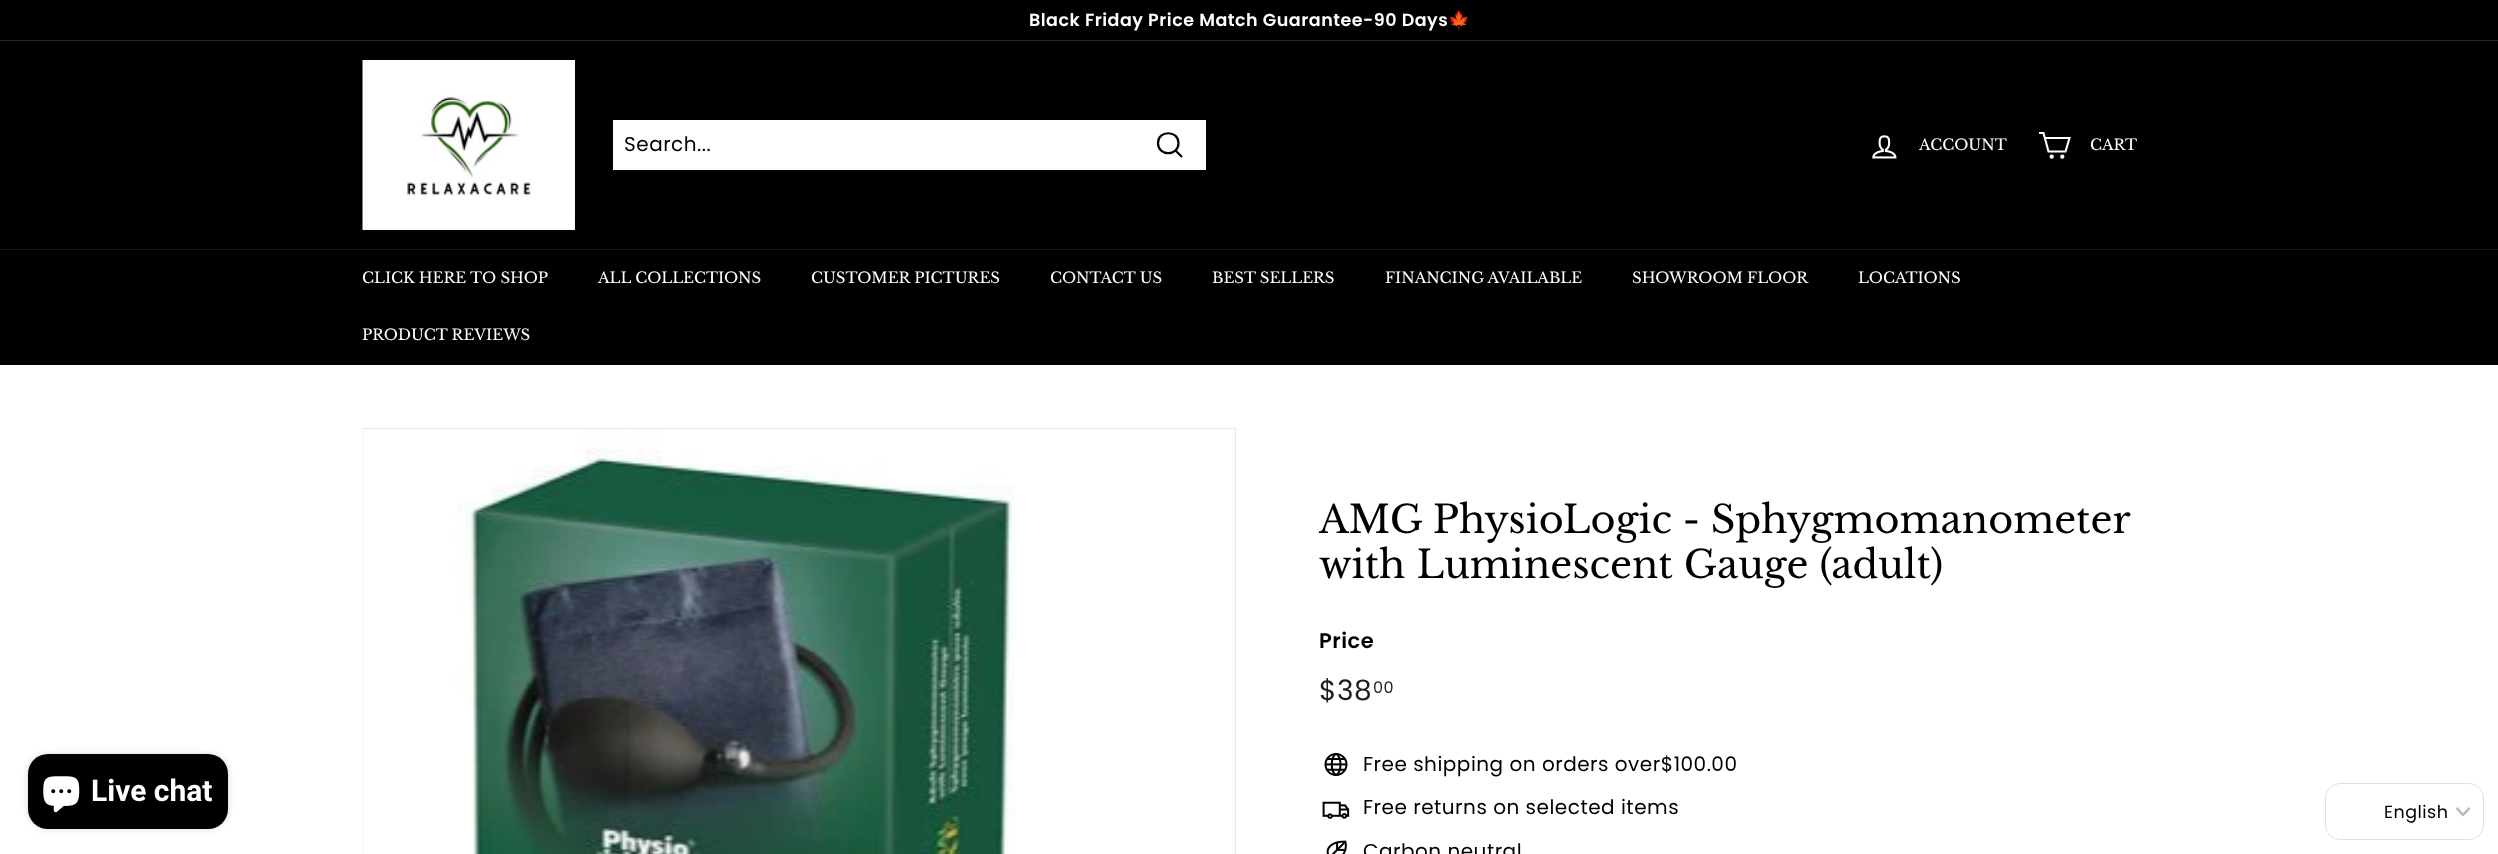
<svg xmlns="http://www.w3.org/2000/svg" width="2498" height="854">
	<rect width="100%" height="100%" fill="#FFFFFF" />
	<rect x="28" y="754" width="200" height="75" rx="20" fill="#000000" fill-opacity="0.15" filter="blur(3px)" />
	<rect x="28" y="754" width="200" height="75" rx="20" fill="#000000" />
	<image x="43" y="776" width="37" height="37" href="assets/img1.png" />
	<text x="91" y="801" font-family="Roboto" font-size="30" font-weight="700" fill="#FFFFFF">Live chat</text>
	<rect x="0" y="0" width="2498" height="40" fill="#000000" />
	<text x="1029" y="26" font-family="Poppins" font-size="17.5" font-weight="600" letter-spacing="0.5" fill="#FFFFFF">Black Friday Price Match Guarantee-90 Days</text>
	<text x="1448" y="26" font-family="Noto Color Emoji" font-size="17.5" font-weight="700" letter-spacing="0.5" fill="#FFFFFF">🍁</text>
	<rect x="0" y="40" width="2498" height="1" fill="#262626" />
	<rect x="0" y="41" width="2498" height="208" fill="#000000" />
	<image x="362" y="60" width="213" height="170" href="assets/img2.png" />
	<rect x="613" y="120" width="593" height="50" fill="#FFFFFF" />
	<text x="624" y="151" font-family="Poppins" font-size="20" letter-spacing="0.5" fill="#000000">Search...</text>
	<path d="M1178.5 143C1178.5 156.5 1158 156.5 1158 143C1158 130 1178.5 130 1178.5 143ZM1182 157L1175.5 150.5" fill="none" stroke="#000000" stroke-width="2.2" />
	<image x="1872" y="135" width="25" height="24" href="assets/img3.png" />
	<text x="1919" y="150" font-family="Libre Baskerville" font-size="15" fill="#FFFFFF">ACCOUNT</text>
	<path d="M2045 138H2069.5L2065.5 151.5H2048.5L2043.5 133H2039" fill="none" stroke="#FFFFFF" stroke-width="2.1" />
	<circle cx="2051.7" cy="156.7" r="1.1" fill="none" stroke="#FFFFFF" stroke-width="2.1" />
	<circle cx="2062.3" cy="156.7" r="1.1" fill="none" stroke="#FFFFFF" stroke-width="2.1" />
	<text x="2090" y="150" font-family="Libre Baskerville" font-size="15" fill="#FFFFFF">CART</text>
	<path d="M0 249V365H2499V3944V249Z" fill="#000000" />
	<rect x="0" y="249" width="2498" height="1" fill="#1A1A1A" />
	<g font-family="Libre Baskerville" font-size="15" fill="#FFFFFF">
		<text x="362" y="283">CLICK HERE TO SHOP</text>
		<text x="598" y="283">ALL COLLECTIONS</text>
		<text x="811" y="283">CUSTOMER PICTURES</text>
		<text x="1050" y="283">CONTACT US</text>
		<text x="1212" y="283">BEST SELLERS</text>
		<text x="1385" y="283">FINANCING AVAILABLE</text>
		<text x="1632" y="283">SHOWROOM FLOOR</text>
		<text x="1858" y="283">LOCATIONS</text>
		<text x="362" y="340">PRODUCT REVIEWS</text>
	</g>
	<rect x="363.5" y="428.5" width="872" height="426" fill="none" stroke="#E8E8E1" />
	<image x="363" y="429" width="652" height="425" href="assets/img4.png" />
	<g font-family="Libre Baskerville" font-size="38.25" fill="#000000">
		<text x="1319" y="533" word-spacing="-0.5">AMG PhysioLogic - Sphygmomanometer</text>
		<text x="1319" y="578">with Luminescent Gauge (adult)</text>
	</g>
	<text x="1319" y="648" font-family="Poppins" font-size="21" font-weight="600" letter-spacing="0.5" fill="#000000">Price</text>
	<text x="1319" y="700" font-family="Poppins" font-size="28" letter-spacing="0.5" fill="#1C1D1D">$38</text>
	<text x="1373" y="693" font-family="Poppins" font-size="16" letter-spacing="0.5" fill="#1C1D1D">00</text>
	<image x="1324" y="752" width="24" height="24" href="assets/img5.png" />
	<text x="1363" y="771" font-family="Poppins" font-size="20" letter-spacing="0.5" fill="#000000">Free shipping on orders over$100.00</text>
	<image x="1322" y="801" width="28" height="18" href="assets/img6.png" />
	<text x="1363" y="814" font-family="Poppins" font-size="20" letter-spacing="0.5" fill="#000000">Free returns on selected items</text>
	<image x="1326" y="840" width="21" height="14" href="assets/img7.png" />
	<text x="1363" y="858" font-family="Poppins" font-size="20" letter-spacing="0.5" fill="#000000">Carbon neutral</text>
	<rect x="2325.5" y="783.5" width="158" height="56" rx="14.5" fill="none" stroke="#E0E0E0" />
	<text x="2384" y="818" font-family="Poppins" font-size="17.5" letter-spacing="0.5" fill="#000000">English</text>
	<image x="2455" y="807" width="15" height="10" href="assets/img8.png" />
</svg>
